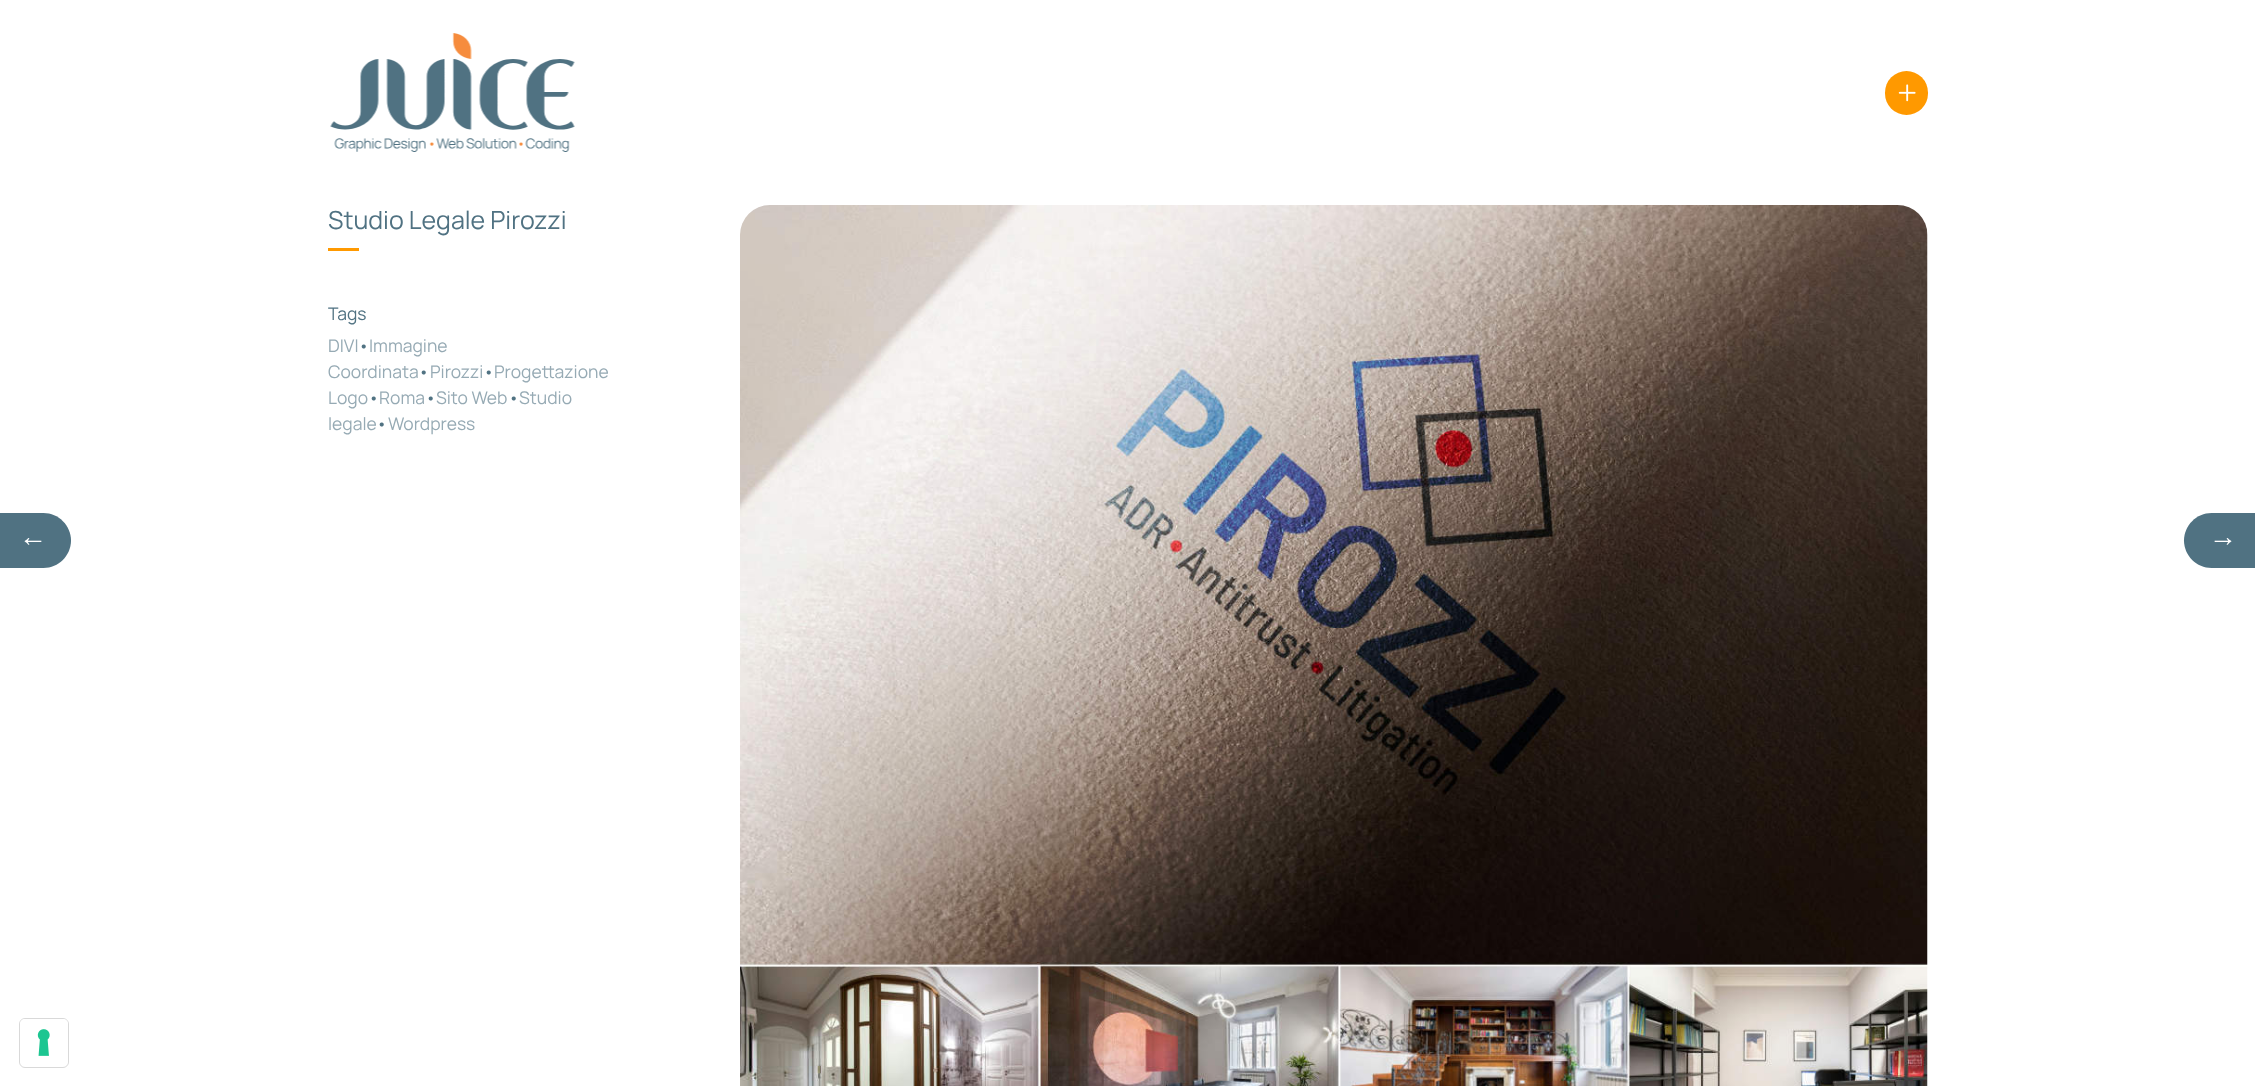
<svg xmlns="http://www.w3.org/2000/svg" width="2255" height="1086">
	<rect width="100%" height="100%" fill="#FFFFFF" />
	<image x="330" y="33" width="245" height="119" href="assets/img1.png" />
	<rect x="1885" y="71" width="43" height="44" rx="21.5" fill="#FF9900" />
	<image x="1898" y="84" width="18" height="18" href="assets/img2.png" />
	<text x="328" y="229" font-family="Manrope" font-size="25" fill="#507282">Studio Legale Pirozzi</text>
	<rect x="328" y="248" width="31" height="3" fill="#FF9900" />
	<text x="328" y="320" font-family="Manrope" font-size="17.5" fill="#507282">Tags</text>
	<text x="328" y="352" font-family="Manrope" font-size="17.5" fill="#96AAB4">DIVI</text>
	<text x="358" y="352" font-family="Manrope" font-size="17.5" fill="#507282">•</text>
	<g font-family="Manrope" font-size="17.5" fill="#96AAB4">
		<text x="369" y="352">Immagine</text>
		<text x="328" y="378">Coordinata</text>
	</g>
	<text x="418" y="378" font-family="Manrope" font-size="17.5" fill="#507282">•</text>
	<text x="430" y="378" font-family="Manrope" font-size="17.5" fill="#96AAB4">Pirozzi</text>
	<text x="483" y="378" font-family="Manrope" font-size="17.5" fill="#507282">•</text>
	<g font-family="Manrope" font-size="17.5" fill="#96AAB4">
		<text x="494" y="378">Progettazione</text>
		<text x="328" y="404">Logo</text>
	</g>
	<text x="368" y="404" font-family="Manrope" font-size="17.5" fill="#507282">•</text>
	<text x="379" y="404" font-family="Manrope" font-size="17.5" fill="#96AAB4">Roma</text>
	<text x="425" y="404" font-family="Manrope" font-size="17.5" fill="#507282">•</text>
	<text x="436" y="404" font-family="Manrope" font-size="17.5" fill="#96AAB4">Sito Web</text>
	<text x="508" y="404" font-family="Manrope" font-size="17.5" fill="#507282">•</text>
	<g font-family="Manrope" font-size="17.5" fill="#96AAB4">
		<text x="519" y="404">Studio</text>
		<text x="328" y="430">legale</text>
	</g>
	<text x="376" y="430" font-family="Manrope" font-size="17.5" fill="#507282">•</text>
	<text x="388" y="430" font-family="Manrope" font-size="17.5" fill="#96AAB4">Wordpress</text>
	<image x="740" y="205" width="1188" height="881" href="assets/img3.png" />
	<path d="M0 513H43.5C58.5 513 71 525.5 71 540.5C71 555.5 58.5 568 43.5 568H0Z" fill="#507282" />
	<text x="19" y="546" font-family="Liberation Sans" font-size="28" fill="#FFFFFF">←</text>
	<path d="M2211.5 513H2255V568H2211.5C2196.5 568 2184 555.5 2184 540.5C2184 525.5 2196.5 513 2211.5 513Z" fill="#507282" />
	<text x="2209" y="546" font-family="Liberation Sans" font-size="28" fill="#FFFFFF">→</text>
	<rect x="19.5" y="1018.5" width="49" height="49" rx="5.5" fill="none" stroke="#D9D9D9" />
	<rect x="20" y="1019" width="48" height="47" rx="5" fill="#FFFFFF" />
	<image x="37" y="1029" width="13" height="27" href="assets/img4.png" />
</svg>
